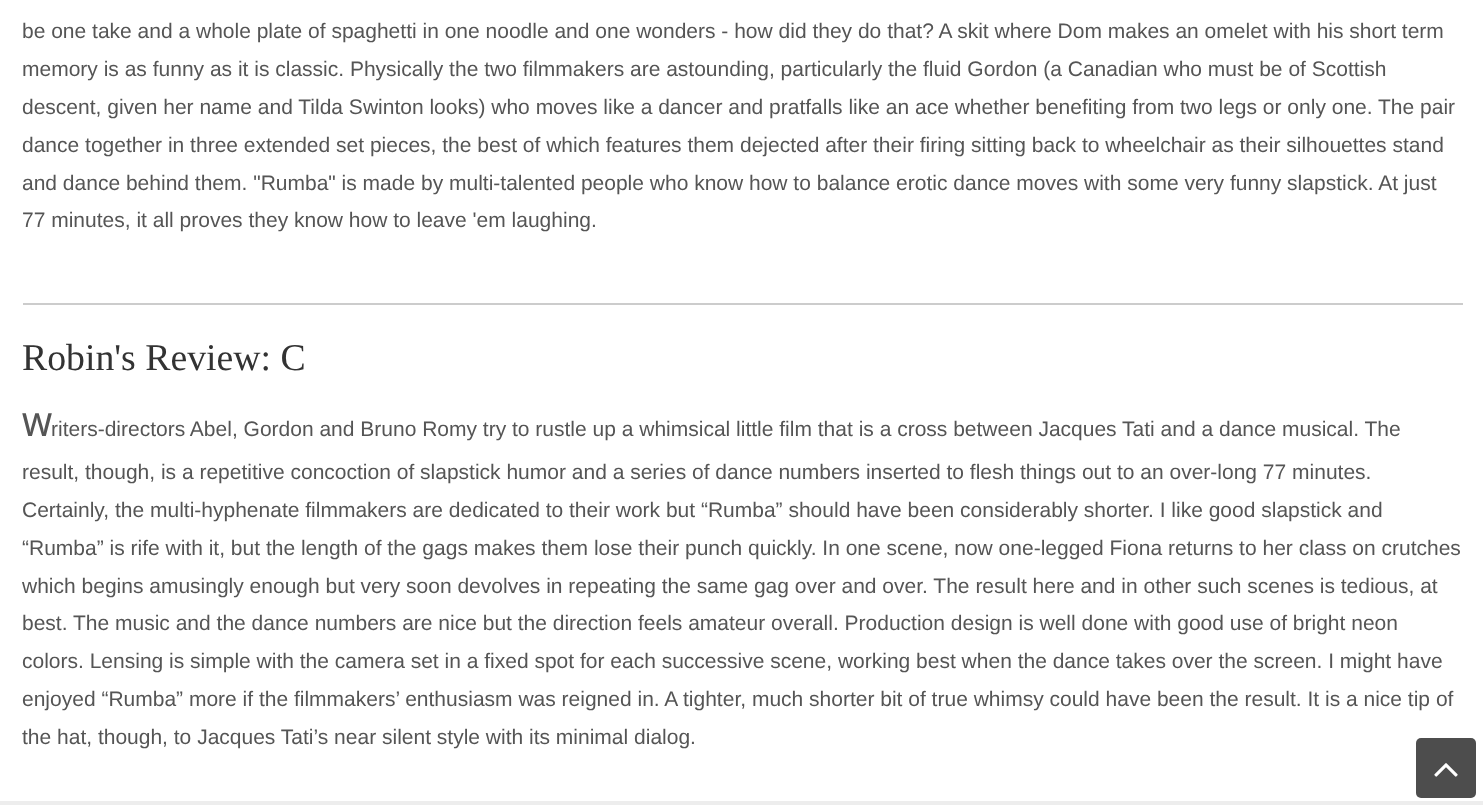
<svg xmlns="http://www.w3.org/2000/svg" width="1483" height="805">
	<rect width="100%" height="100%" fill="#FFFFFF" />
	<g font-family="Liberation Sans" font-size="21" fill="#555555">
		<text x="22" y="38">be one take and a whole plate of spaghetti in one noodle and one wonders - how did they do that? A skit where Dom makes an omelet with his short term</text>
		<text x="22" y="76">memory is as funny as it is classic. Physically the two filmmakers are astounding, particularly the fluid Gordon (a Canadian who must be of Scottish</text>
		<text x="22" y="114">descent, given her name and Tilda Swinton looks) who moves like a dancer and pratfalls like an ace whether benefiting from two legs or only one. The pair</text>
		<text x="22" y="152">dance together in three extended set pieces, the best of which features them dejected after their firing sitting back to wheelchair as their silhouettes stand</text>
		<text x="22" y="190">and dance behind them. "Rumba" is made by multi-talented people who know how to balance erotic dance moves with some very funny slapstick. At just</text>
		<text x="22" y="227">77 minutes, it all proves they know how to leave 'em laughing.</text>
	</g>
	<rect x="23" y="303" width="1440" height="2" fill="#CCCCCC" />
	<text x="22" y="370" font-family="Liberation Serif" font-size="37.75" fill="#333333">Robin's Review: C</text>
	<text x="22" y="436" font-family="Noto Sans" font-size="32" font-weight="500" fill="#555555">W</text>
	<g font-family="Liberation Sans" font-size="21" fill="#555555">
		<text x="51" y="436">riters-directors Abel, Gordon and Bruno Romy try to rustle up a whimsical little film that is a cross between Jacques Tati and a dance musical. The</text>
		<text x="22" y="479">result, though, is a repetitive concoction of slapstick humor and a series of dance numbers inserted to flesh things out to an over-long 77 minutes.</text>
		<text x="22" y="517">Certainly, the multi-hyphenate filmmakers are dedicated to their work but “Rumba” should have been considerably shorter. I like good slapstick and</text>
		<text x="22" y="555">“Rumba” is rife with it, but the length of the gags makes them lose their punch quickly. In one scene, now one-legged Fiona returns to her class on crutches</text>
		<text x="22" y="593">which begins amusingly enough but very soon devolves in repeating the same gag over and over. The result here and in other such scenes is tedious, at</text>
		<text x="22" y="630">best. The music and the dance numbers are nice but the direction feels amateur overall. Production design is well done with good use of bright neon</text>
		<text x="22" y="668">colors. Lensing is simple with the camera set in a fixed spot for each successive scene, working best when the dance takes over the screen. I might have</text>
		<text x="22" y="706">enjoyed “Rumba” more if the filmmakers’ enthusiasm was reigned in. A tighter, much shorter bit of true whimsy could have been the result. It is a nice tip of</text>
		<text x="22" y="744">the hat, though, to Jacques Tati’s near silent style with its minimal dialog.</text>
	</g>
	<rect x="0" y="801" width="1483" height="4" fill="#EDEDED" />
	<rect x="1416" y="738" width="60" height="60" rx="5" fill="#4D4D4D" />
	<image x="1434" y="763" width="24" height="14" href="assets/img1.png" />
</svg>
